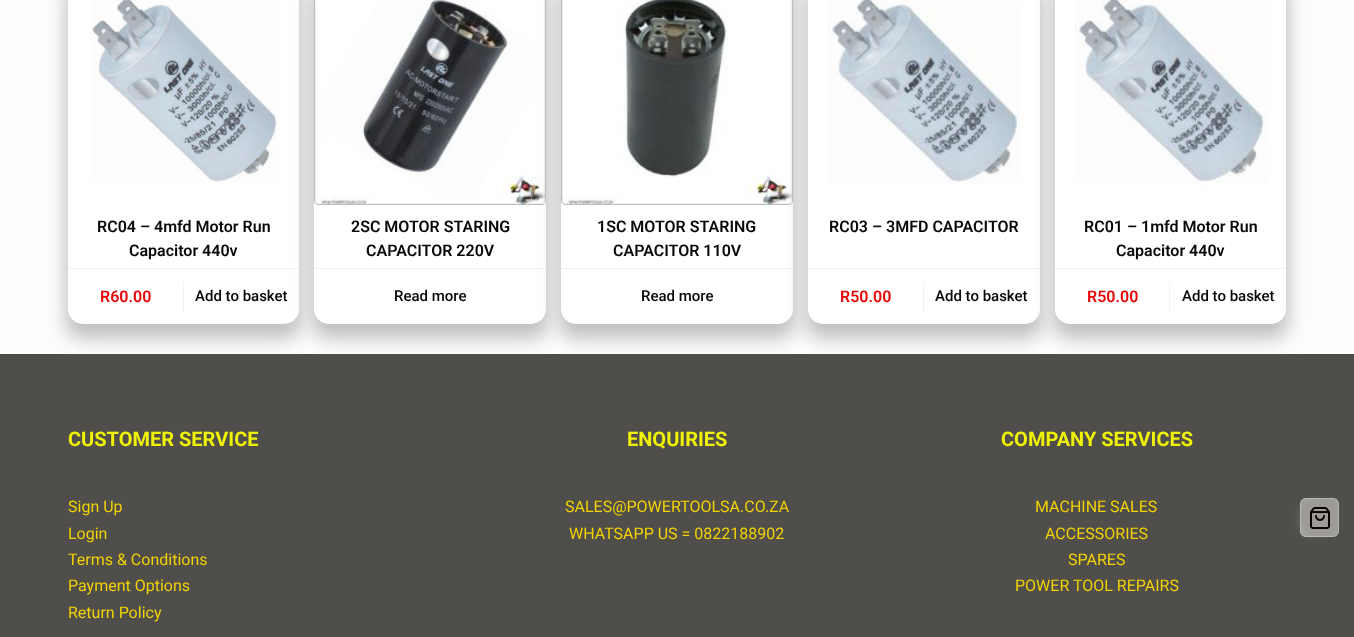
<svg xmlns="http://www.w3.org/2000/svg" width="1354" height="637">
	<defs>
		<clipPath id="clip1"><path d="M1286 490H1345V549H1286ZM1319.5 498C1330.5 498 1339 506.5 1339 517.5C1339 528.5 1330.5 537 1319.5 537C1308.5 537 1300 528.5 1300 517.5C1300 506.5 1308.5 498 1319.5 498Z" clip-rule="evenodd" /></clipPath>
	</defs>
	<rect width="100%" height="100%" fill="#FDFDFD" />
	<rect x="0" y="354" width="1354" height="283" fill="#504E4A" />
	<rect x="65" y="-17" width="237" height="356" rx="18" fill="#C1C1C1" filter="blur(9px)" />
	<rect x="68" y="-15" width="231" height="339" rx="15" fill="#FFFFFF" />
	<image x="91" y="0" width="188" height="182" href="assets/img1.png" />
	<g font-family="Roboto" font-size="16" font-weight="600" fill="#090909">
		<text x="97" y="232">RC04 – 4mfd Motor Run</text>
		<text x="129" y="256">Capacitor 440v</text>
	</g>
	<rect x="68" y="268" width="231" height="1" fill="#F2F2F2" />
	<text x="100" y="302" font-family="Roboto" font-size="16" font-weight="600" fill="#EA0606">R60.00</text>
	<rect x="183" y="282" width="1" height="30" fill="#F2F2F2" />
	<text x="195" y="301" font-family="Roboto" font-size="15" font-weight="500" fill="#0A0500">Add to basket</text>
	<rect x="311" y="-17" width="238" height="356" rx="18" fill="#C1C1C1" filter="blur(9px)" />
	<rect x="314" y="-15" width="232" height="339" rx="15" fill="#FFFFFF" />
	<image x="314" y="0" width="232" height="205" href="assets/img2.png" />
	<g font-family="Roboto" font-size="16" font-weight="600" fill="#090909">
		<text x="351" y="232">2SC MOTOR STARING</text>
		<text x="366" y="256">CAPACITOR 220V</text>
	</g>
	<rect x="314" y="268" width="232" height="1" fill="#F2F2F2" />
	<text x="394" y="301" font-family="Roboto" font-size="15" font-weight="500" fill="#0A0500">Read more</text>
	<rect x="558" y="-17" width="238" height="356" rx="18" fill="#C1C1C1" filter="blur(9px)" />
	<rect x="561" y="-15" width="232" height="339" rx="15" fill="#FFFFFF" />
	<image x="561" y="0" width="232" height="205" href="assets/img3.png" />
	<g font-family="Roboto" font-size="16" font-weight="600" fill="#090909">
		<text x="597" y="232">1SC MOTOR STARING</text>
		<text x="613" y="256">CAPACITOR 110V</text>
	</g>
	<rect x="561" y="268" width="232" height="1" fill="#F2F2F2" />
	<text x="641" y="301" font-family="Roboto" font-size="15" font-weight="500" fill="#0A0500">Read more</text>
	<rect x="805" y="-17" width="238" height="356" rx="18" fill="#C1C1C1" filter="blur(9px)" />
	<rect x="808" y="-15" width="232" height="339" rx="15" fill="#FFFFFF" />
	<image x="827" y="0" width="197" height="187" href="assets/img4.png" />
	<text x="829" y="232" font-family="Roboto" font-size="16" font-weight="600" fill="#090909">RC03 – 3MFD CAPACITOR</text>
	<rect x="808" y="268" width="232" height="1" fill="#F2F2F2" />
	<text x="840" y="302" font-family="Roboto" font-size="16" font-weight="600" fill="#EA0606">R50.00</text>
	<rect x="923" y="282" width="1" height="30" fill="#F2F2F2" />
	<text x="935" y="301" font-family="Roboto" font-size="15" font-weight="500" fill="#0A0500">Add to basket</text>
	<rect x="1052" y="-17" width="237" height="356" rx="18" fill="#C1C1C1" filter="blur(9px)" />
	<rect x="1055" y="-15" width="231" height="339" rx="15" fill="#FFFFFF" />
	<image x="1074" y="0" width="196" height="187" href="assets/img5.png" />
	<g font-family="Roboto" font-size="16" font-weight="600" fill="#090909">
		<text x="1084" y="232">RC01 – 1mfd Motor Run</text>
		<text x="1116" y="256">Capacitor 440v</text>
	</g>
	<rect x="1055" y="268" width="231" height="1" fill="#F2F2F2" />
	<text x="1087" y="302" font-family="Roboto" font-size="16" font-weight="600" fill="#EA0606">R50.00</text>
	<rect x="1169" y="282" width="1" height="30" fill="#F2F2F2" />
	<text x="1182" y="301" font-family="Roboto" font-size="15" font-weight="500" fill="#0A0500">Add to basket</text>
	<text x="68" y="446" font-family="Roboto" font-size="20" font-weight="700" fill="#EFF202">CUSTOMER SERVICE</text>
	<g font-family="Roboto" font-size="16" fill="#F2D202">
		<text x="68" y="512">Sign Up</text>
		<text x="68" y="539">Login</text>
		<text x="68" y="565">Terms &amp; Conditions</text>
		<text x="68" y="591">Payment Options</text>
		<text x="68" y="618">Return Policy</text>
	</g>
	<text x="627" y="446" font-family="Roboto" font-size="20" font-weight="700" fill="#EFF202">ENQUIRIES</text>
	<g font-family="Roboto" font-size="16" fill="#F2D202">
		<text x="565" y="512">SALES@POWERTOOLSA.CO.ZA</text>
		<text x="569" y="539">WHATSAPP US = 0822188902</text>
	</g>
	<text x="1001" y="446" font-family="Roboto" font-size="20" font-weight="700" fill="#EFF202">COMPANY SERVICES</text>
	<g font-family="Roboto" font-size="16" fill="#F2D202">
		<text x="1035" y="512">MACHINE SALES</text>
		<text x="1045" y="539">ACCESSORIES</text>
		<text x="1068" y="565">SPARES</text>
		<text x="1015" y="591">POWER TOOL REPAIRS</text>
	</g>
	<g clip-path="url(#clip1)">
		<rect x="1296" y="500" width="39" height="39" rx="19.5" fill="#DDDDDD" fill-opacity="0.1" filter="blur(3px)" />
	</g>
	<rect x="1300" y="498" width="39" height="39" rx="6" fill="#FFFFFF" fill-opacity="0.44" />
	<rect x="1300.5" y="498.5" width="38" height="38" rx="5.5" fill="none" stroke="#FFFFFF" stroke-opacity="0.27" />
	<image x="1310" y="507" width="20" height="22" href="assets/img6.png" />
</svg>
